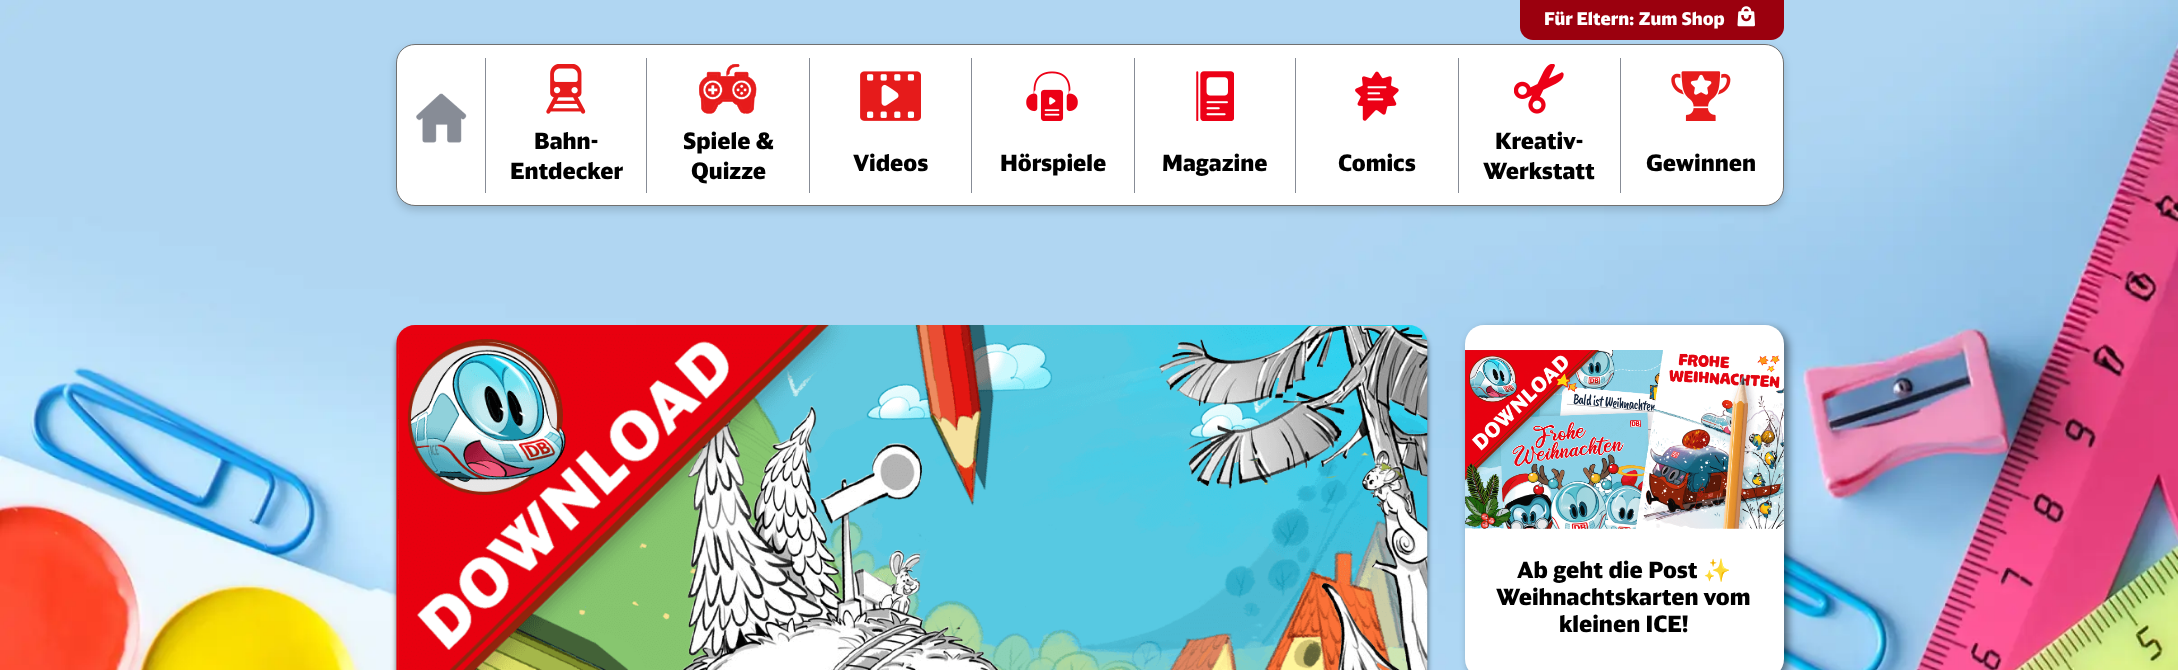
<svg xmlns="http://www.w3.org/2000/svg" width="2178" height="670">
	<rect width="100%" height="100%" fill="#FFFFFF" />
	<image x="0" y="0" width="2178" height="670" href="assets/img1.png" />
	<rect x="396" y="48" width="1388" height="162" rx="19" fill="#000000" fill-opacity="0.16" filter="blur(4px)" />
	<path d="M1520 0H1784V27C1784 34 1778 40 1771 40H1533C1526 40 1520 34 1520 27Z" fill="#9B000E" />
	<text x="1544" y="25" font-family="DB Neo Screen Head" font-size="17.5" font-weight="900" fill="#FFFFFF">Für Eltern: Zum Shop</text>
	<image x="1737" y="6" width="18" height="21" href="assets/img2.png" />
	<rect x="396.5" y="44.5" width="1387" height="161" rx="18.5" fill="#FFFFFF" stroke="#707070" />
	<image x="416" y="93" width="51" height="50" href="assets/img3.png" />
	<rect x="485" y="58" width="1" height="135" fill="#878C96" />
	<image x="546" y="64" width="40" height="50" href="assets/img4.png" />
	<g font-family="DB Neo Screen Head" font-size="22.5" font-weight="900" fill="#000000">
		<text x="534" y="149">Bahn-</text>
		<text x="510" y="179">Entdecker</text>
	</g>
	<rect x="646" y="58" width="1" height="135" fill="#878C96" />
	<image x="699" y="64" width="58" height="50" href="assets/img5.png" />
	<g font-family="DB Neo Screen Head" font-size="22.5" font-weight="900" fill="#000000">
		<text x="683" y="149">Spiele &amp;</text>
		<text x="691" y="179">Quizze</text>
	</g>
	<rect x="809" y="58" width="1" height="135" fill="#878C96" />
	<image x="860" y="71" width="61" height="50" href="assets/img6.png" />
	<text x="853" y="171" font-family="DB Neo Screen Head" font-size="22.5" font-weight="900" fill="#000000">Videos</text>
	<rect x="971" y="58" width="1" height="135" fill="#878C96" />
	<image x="1026" y="71" width="52" height="50" href="assets/img7.png" />
	<text x="1000" y="171" font-family="DB Neo Screen Head" font-size="22.5" font-weight="900" fill="#000000">Hörspiele</text>
	<rect x="1134" y="58" width="1" height="135" fill="#878C96" />
	<image x="1196" y="71" width="38" height="50" href="assets/img8.png" />
	<text x="1162" y="171" font-family="DB Neo Screen Head" font-size="22.5" font-weight="900" fill="#000000">Magazine</text>
	<rect x="1295" y="58" width="1" height="135" fill="#878C96" />
	<image x="1355" y="71" width="44" height="50" href="assets/img9.png" />
	<text x="1338" y="171" font-family="DB Neo Screen Head" font-size="22.5" font-weight="900" fill="#000000">Comics</text>
	<rect x="1458" y="58" width="1" height="135" fill="#878C96" />
	<image x="1514" y="64" width="50" height="50" href="assets/img10.png" />
	<g font-family="DB Neo Screen Head" font-size="22.5" font-weight="900" fill="#000000">
		<text x="1495" y="149">Kreativ-</text>
		<text x="1483" y="179">Werkstatt</text>
	</g>
	<rect x="1620" y="58" width="1" height="135" fill="#878C96" />
	<image x="1671" y="71" width="60" height="50" href="assets/img11.png" />
	<text x="1646" y="171" font-family="DB Neo Screen Head" font-size="22.5" font-weight="900" fill="#000000">Gewinnen</text>
	<rect x="396" y="330" width="1032" height="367" rx="19" fill="#000000" fill-opacity="0.5" filter="blur(2.5px)" />
	<image x="396" y="325" width="1032" height="345" href="assets/img12.png" />
	<rect x="1469" y="329" width="319" height="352" rx="19" fill="#000000" fill-opacity="0.5" filter="blur(4px)" />
	<rect x="1465" y="325" width="319" height="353" rx="19" fill="#FFFFFF" />
	<image x="1465" y="350" width="319" height="179" href="assets/img13.png" />
	<text x="1517" y="578" font-family="DB Neo Screen Head" font-size="22.5" font-weight="900" fill="#000000">Ab geht die Post</text>
	<text x="1703" y="578" font-family="Noto Color Emoji" font-size="22.5" fill="#000000">✨</text>
	<g font-family="DB Neo Screen Head" font-size="22.5" font-weight="900" fill="#000000">
		<text x="1496" y="605">Weihnachtskarten vom</text>
		<text x="1559" y="632">kleinen ICE!</text>
	</g>
</svg>
